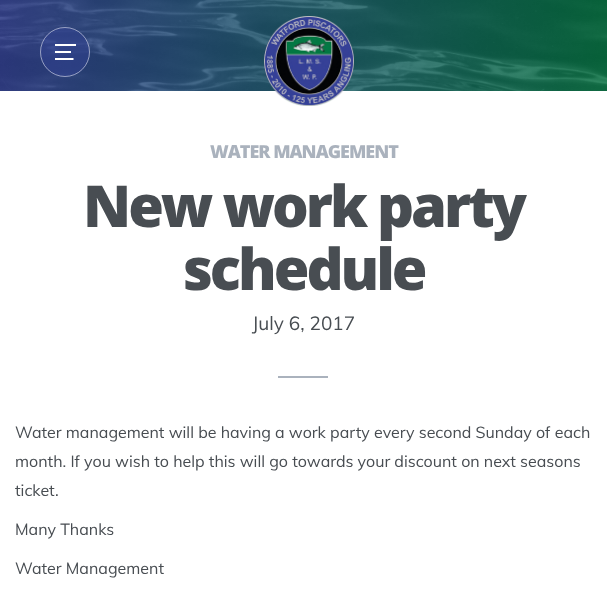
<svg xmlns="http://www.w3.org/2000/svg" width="607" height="609">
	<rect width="100%" height="100%" fill="#FFFFFF" />
	<image x="0" y="0" width="607" height="91" href="assets/img1.png" />
	<circle cx="65" cy="52" r="25" fill="#324194" fill-opacity="0.5" />
	<image x="55" y="44" width="21" height="16" href="assets/img2.png" />
	<circle cx="65" cy="52" r="24.5" fill="none" stroke="#FFFFFF" stroke-opacity="0.5" />
	<image x="264" y="16" width="90" height="90" href="assets/img3.png" />
	<text x="210" y="158" font-family="Open Sans" font-size="18" font-weight="800" letter-spacing="-1" fill="#AAB2BD">WATER MANAGEMENT</text>
	<g font-family="Open Sans" font-size="57.75" font-weight="800" letter-spacing="-3" fill="#484D52">
		<text x="83" y="227">New work party</text>
		<text x="183" y="290">schedule</text>
	</g>
	<text x="252" y="330" font-family="Muli" font-size="19" fill="#484D52">July 6, 2017</text>
	<rect x="278" y="376" width="50" height="2" fill="#AAB2BD" />
	<g font-family="Muli" font-size="16" fill="#484D52">
		<text x="15" y="438">Water management will be having a work party every second Sunday of each</text>
		<text x="15" y="467">month. If you wish to help this will go towards your discount on next seasons</text>
		<text x="15" y="496">ticket.</text>
		<text x="15" y="535">Many Thanks</text>
		<text x="15" y="574">Water Management</text>
	</g>
</svg>
